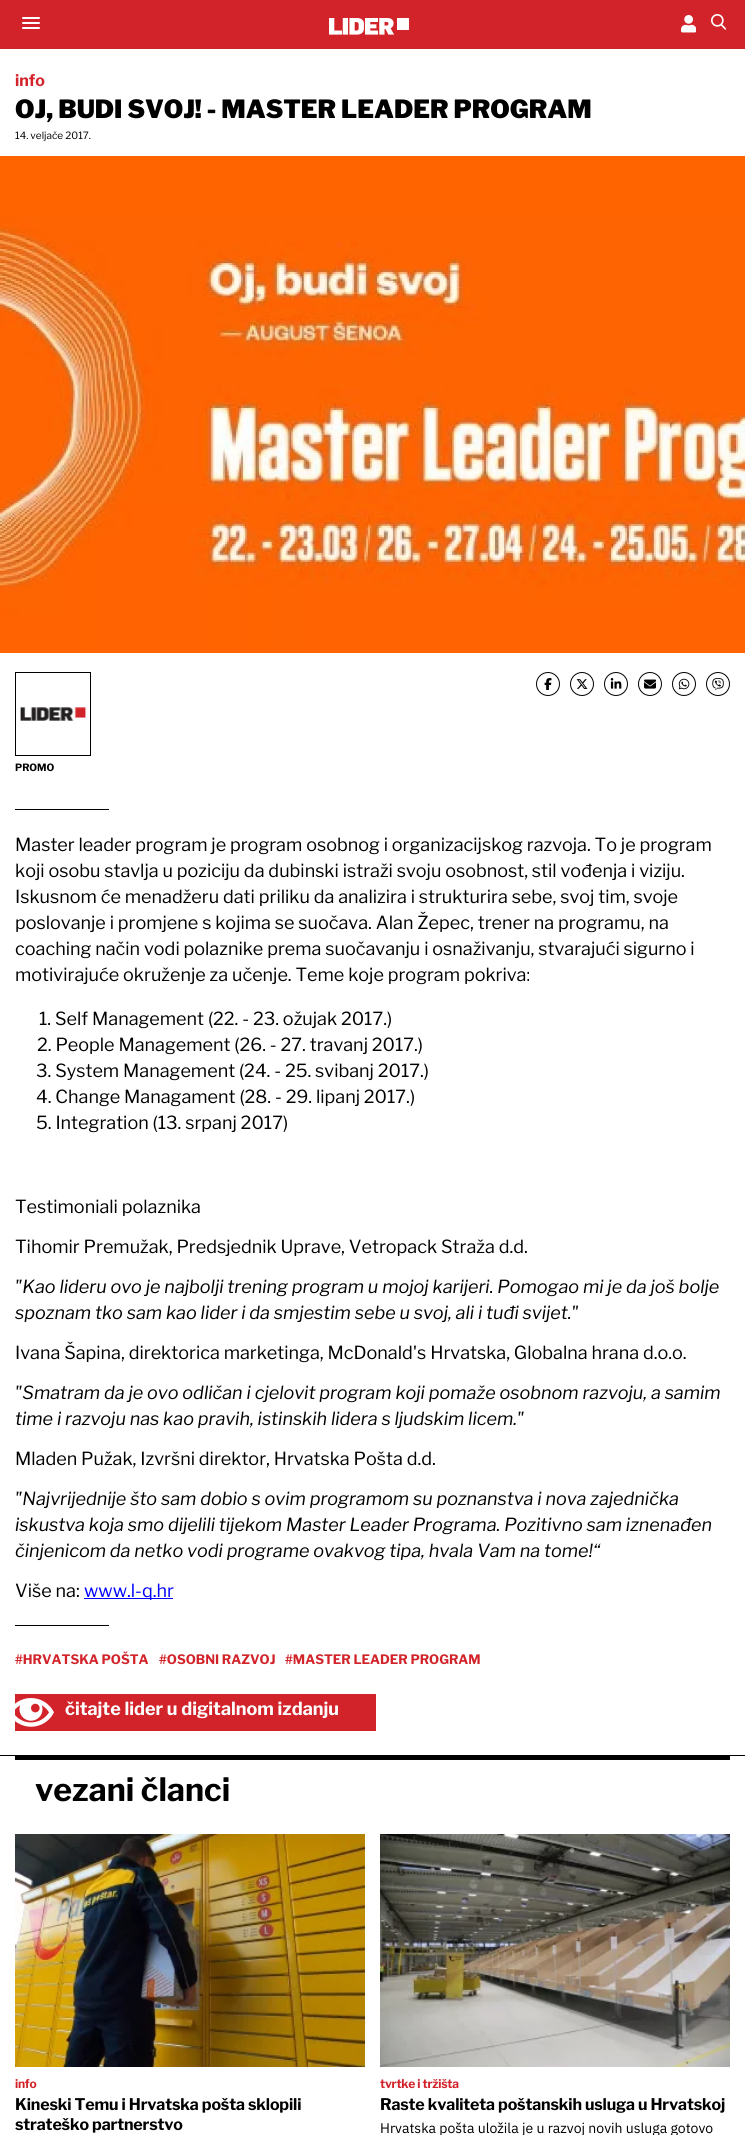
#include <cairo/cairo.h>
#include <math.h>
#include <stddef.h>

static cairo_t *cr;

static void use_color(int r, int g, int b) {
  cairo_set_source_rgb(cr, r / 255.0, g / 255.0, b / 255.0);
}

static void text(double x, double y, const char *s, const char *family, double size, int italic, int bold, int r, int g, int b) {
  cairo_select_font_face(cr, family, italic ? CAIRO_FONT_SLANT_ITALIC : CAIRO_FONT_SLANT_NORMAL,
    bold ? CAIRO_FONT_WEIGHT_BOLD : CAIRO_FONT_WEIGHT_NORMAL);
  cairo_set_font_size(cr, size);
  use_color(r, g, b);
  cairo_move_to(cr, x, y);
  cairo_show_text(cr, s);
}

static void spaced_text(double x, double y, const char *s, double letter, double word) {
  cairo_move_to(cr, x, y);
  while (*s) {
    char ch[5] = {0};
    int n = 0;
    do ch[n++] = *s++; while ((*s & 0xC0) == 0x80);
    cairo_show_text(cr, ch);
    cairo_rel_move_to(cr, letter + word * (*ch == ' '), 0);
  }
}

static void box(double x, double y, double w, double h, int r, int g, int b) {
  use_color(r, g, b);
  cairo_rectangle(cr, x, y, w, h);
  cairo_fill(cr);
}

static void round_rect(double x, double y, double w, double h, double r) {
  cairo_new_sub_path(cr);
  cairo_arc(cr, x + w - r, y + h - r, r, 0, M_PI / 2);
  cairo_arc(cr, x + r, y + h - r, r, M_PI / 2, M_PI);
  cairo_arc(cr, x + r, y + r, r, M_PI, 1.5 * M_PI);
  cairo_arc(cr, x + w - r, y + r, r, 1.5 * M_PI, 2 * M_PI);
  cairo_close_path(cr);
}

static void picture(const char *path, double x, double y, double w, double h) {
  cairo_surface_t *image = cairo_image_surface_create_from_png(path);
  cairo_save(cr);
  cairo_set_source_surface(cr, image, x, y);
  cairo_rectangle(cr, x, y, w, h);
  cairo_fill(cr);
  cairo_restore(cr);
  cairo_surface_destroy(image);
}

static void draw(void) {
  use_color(255, 255, 255);
  cairo_paint(cr);
  box(0, 0, 745, 49, 210, 35, 42);
  use_color(255, 255, 255);
  round_rect(22, 22, 18, 2, 1);
  cairo_fill(cr);
  round_rect(22, 17, 18, 2, 1);
  cairo_fill(cr);
  round_rect(22, 27, 18, 2, 1);
  cairo_fill(cr);
  picture("img_01.png", 329, 18, 80, 17);
  picture("img_02.png", 681, 15, 15, 18);
  picture("img_03.png", 711, 14, 15, 16);
  picture("img_04.png", 0, 156, 745, 497);
  cairo_arc(cr, 548, 684, 11.5, 0, 2 * M_PI);
  use_color(0, 0, 0);
  cairo_set_line_width(cr, 1);
  cairo_stroke(cr);
  picture("img_05.png", 544, 678, 8, 12);
  cairo_arc(cr, 582, 684, 11.5, 0, 2 * M_PI);
  cairo_stroke(cr);
  picture("img_06.png", 576, 679, 12, 10);
  cairo_arc(cr, 616, 684, 11.5, 0, 2 * M_PI);
  cairo_stroke(cr);
  picture("img_07.png", 610, 678, 12, 11);
  cairo_arc(cr, 650, 684, 11.5, 0, 2 * M_PI);
  cairo_stroke(cr);
  picture("img_08.png", 644, 679, 12, 10);
  cairo_arc(cr, 684, 684, 11.5, 0, 2 * M_PI);
  cairo_stroke(cr);
  picture("img_09.png", 678, 678, 12, 12);
  cairo_arc(cr, 718, 684, 11.5, 0, 2 * M_PI);
  cairo_stroke(cr);
  picture("img_10.png", 712, 678, 12, 12);
  cairo_rectangle(cr, 15.5, 672.5, 75, 83);
  cairo_stroke(cr);
  picture("img_11.png", 20, 707, 67, 14);
  box(15, 809, 94, 1, 0, 0, 0);
  box(84, 1598, 89, 1, 0, 0, 255);
  box(15, 1625, 94, 1, 0, 0, 0);
  box(15, 1694, 361, 37, 210, 35, 42);
  picture("img_12.png", 15, 1698, 39, 29);
  box(0, 1755, 745, 1, 0, 0, 0);
  box(15, 1756, 715, 4, 0, 0, 0);
  picture("img_13.png", 15, 1834, 350, 233);
  picture("img_14.png", 380, 1834, 350, 233);
  text(15, 86, "info", "Libre Franklin", 16, 0, 1, 210, 35, 42);
  text(15, 118, "OJ, BUDI SVOJ! - MASTER LEADER PROGRAM", "Libre Franklin Black", 25, 0, 0, 0, 0, 0);
  text(15, 139, "14. veljače 2017.", "Libre Franklin", 10, 0, 0, 0, 0, 0);
  text(15, 771, "PROMO", "Libre Franklin", 10, 0, 1, 0, 0, 0);
  text(15, 851, "Master leader program je program osobnog i organizacijskog razvoja. To je program", "Libre Franklin", 18, 0, 0, 0, 0, 0);
  text(15, 877, "koji osobu stavlja u poziciju da dubinski istraži svoju osobnost, stil vođenja i viziju.", "Libre Franklin", 18, 0, 0, 0, 0, 0);
  text(15, 903, "Iskusnom će menadžeru dati priliku da analizira i strukturira sebe, svoj tim, svoje", "Libre Franklin", 18, 0, 0, 0, 0, 0);
  text(15, 929, "poslovanje i promjene s kojima se suočava. Alan Žepec, trener na programu, na", "Libre Franklin", 18, 0, 0, 0, 0, 0);
  text(15, 955, "coaching način vodi polaznike prema suočavanju i osnaživanju, stvarajući sigurno i", "Libre Franklin", 18, 0, 0, 0, 0, 0);
  text(15, 981, "motivirajuće okruženje za učenje. Teme koje program pokriva:", "Libre Franklin", 18, 0, 0, 0, 0, 0);
  text(39, 1025, "1. Self Management (22. - 23. ožujak 2017.)", "Libre Franklin", 18, 0, 0, 0, 0, 0);
  text(37, 1051, "2. People Management (26. - 27. travanj 2017.)", "Libre Franklin", 18, 0, 0, 0, 0, 0);
  text(36, 1077, "3. System Management (24. - 25. svibanj 2017.)", "Libre Franklin", 18, 0, 0, 0, 0, 0);
  text(36, 1103, "4. Change Managament (28. - 29. lipanj 2017.)", "Libre Franklin", 18, 0, 0, 0, 0, 0);
  text(36, 1129, "5. Integration (13. srpanj 2017)", "Libre Franklin", 18, 0, 0, 0, 0, 0);
  text(15, 1213, "Testimoniali polaznika", "Libre Franklin", 18, 0, 0, 0, 0, 0);
  text(15, 1253, "Tihomir Premužak, Predsjednik Uprave, Vetropack Straža d.d.", "Libre Franklin", 18, 0, 0, 0, 0, 0);
  text(15, 1293, "\"Kao lideru ovo je najbolji trening program u mojoj karijeri. Pomogao mi je da još bolje", "Libre Franklin", 18, 1, 0, 0, 0, 0);
  text(15, 1319, "spoznam tko sam kao lider i da smjestim sebe u svoj, ali i tuđi svijet.\"", "Libre Franklin", 18, 1, 0, 0, 0, 0);
  text(15, 1359, "Ivana Šapina, direktorica marketinga, McDonald's Hrvatska, Globalna hrana d.o.o.", "Libre Franklin", 18, 0, 0, 0, 0, 0);
  text(15, 1399, "\"Smatram da je ovo odličan i cjelovit program koji pomaže osobnom razvoju, a samim", "Libre Franklin", 18, 1, 0, 0, 0, 0);
  text(15, 1425, "time i razvoju nas kao pravih, istinskih lidera s ljudskim licem.\"", "Libre Franklin", 18, 1, 0, 0, 0, 0);
  text(15, 1465, "Mladen Pužak, Izvršni direktor, Hrvatska Pošta d.d.", "Libre Franklin", 18, 0, 0, 0, 0, 0);
  text(15, 1505, "\"Najvrijednije što sam dobio s ovim programom su poznanstva i nova zajednička", "Libre Franklin", 18, 1, 0, 0, 0, 0);
  text(15, 1531, "iskustva koja smo dijelili tijekom Master Leader Programa. Pozitivno sam iznenađen", "Libre Franklin", 18, 1, 0, 0, 0, 0);
  text(15, 1557, "činjenicom da netko vodi programe ovakvog tipa, hvala Vam na tome!“", "Libre Franklin", 18, 1, 0, 0, 0, 0);
  text(15, 1597, "Više na:", "Libre Franklin", 18, 0, 0, 0, 0, 0);
  text(84, 1597, "www.l-q.hr", "Libre Franklin", 18, 0, 0, 0, 0, 255);
  text(15, 1664, "#HRVATSKA POŠTA", "Libre Franklin", 13, 0, 1, 210, 35, 42);
  text(159, 1664, "#OSOBNI RAZVOJ", "Libre Franklin", 13, 0, 1, 210, 35, 42);
  text(285, 1664, "#MASTER LEADER PROGRAM", "Libre Franklin", 13, 0, 1, 210, 35, 42);
  text(65, 1715, "čitajte lider u digitalnom izdanju", "Libre Franklin", 18, 0, 1, 255, 255, 255);
  text(35, 1801, "vezani članci", "Libre Franklin", 32, 0, 1, 0, 0, 0);
  cairo_set_font_size(cr, 12);
  use_color(210, 35, 42);
  spaced_text(15, 2088, "info", -0.25, 0);
  cairo_set_font_size(cr, 16);
  use_color(0, 0, 0);
  spaced_text(15, 2110, "Kineski Temu i Hrvatska pošta sklopili", -0.15, 0);
  spaced_text(15, 2130, "strateško partnerstvo", -0.15, 0);
  cairo_set_font_size(cr, 12);
  use_color(210, 35, 42);
  spaced_text(380, 2088, "tvrtke i tržišta", -0.25, 0);
  cairo_set_font_size(cr, 16);
  use_color(0, 0, 0);
  spaced_text(380, 2110, "Raste kvaliteta poštanskih usluga u Hrvatskoj", -0.15, 0);
  text(380, 2133, "Hrvatska pošta uložila je u razvoj novih usluga gotovo", "IBM Plex Sans", 14, 0, 0, 0, 0, 0);
}

int main(void) {
  cairo_surface_t *surface = cairo_image_surface_create(CAIRO_FORMAT_RGB24, 745, 2135);
  cr = cairo_create(surface);
  cairo_font_options_t *options = cairo_font_options_create();
  cairo_font_options_set_hint_metrics(options, CAIRO_HINT_METRICS_OFF);
  cairo_font_options_set_hint_style(options, CAIRO_HINT_STYLE_NONE);
  cairo_set_font_options(cr, options);
  cairo_set_miter_limit(cr, 4);
  draw();
  cairo_surface_write_to_png(surface, "out.png");
  cairo_font_options_destroy(options);
  cairo_destroy(cr);
  cairo_surface_destroy(surface);
  return 0;
}
